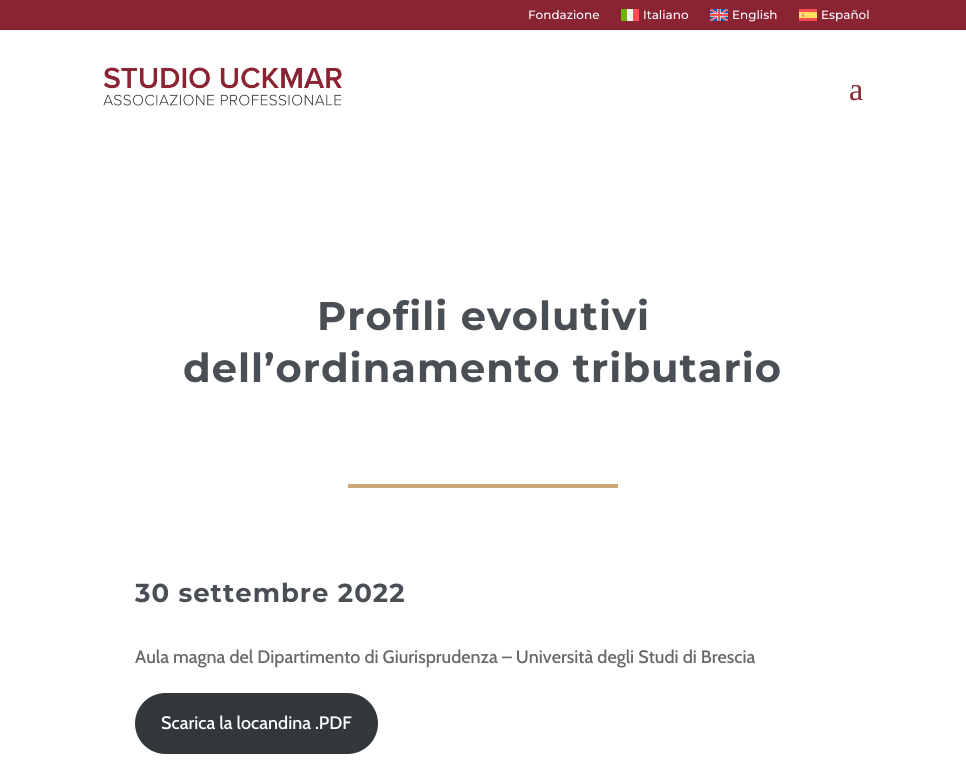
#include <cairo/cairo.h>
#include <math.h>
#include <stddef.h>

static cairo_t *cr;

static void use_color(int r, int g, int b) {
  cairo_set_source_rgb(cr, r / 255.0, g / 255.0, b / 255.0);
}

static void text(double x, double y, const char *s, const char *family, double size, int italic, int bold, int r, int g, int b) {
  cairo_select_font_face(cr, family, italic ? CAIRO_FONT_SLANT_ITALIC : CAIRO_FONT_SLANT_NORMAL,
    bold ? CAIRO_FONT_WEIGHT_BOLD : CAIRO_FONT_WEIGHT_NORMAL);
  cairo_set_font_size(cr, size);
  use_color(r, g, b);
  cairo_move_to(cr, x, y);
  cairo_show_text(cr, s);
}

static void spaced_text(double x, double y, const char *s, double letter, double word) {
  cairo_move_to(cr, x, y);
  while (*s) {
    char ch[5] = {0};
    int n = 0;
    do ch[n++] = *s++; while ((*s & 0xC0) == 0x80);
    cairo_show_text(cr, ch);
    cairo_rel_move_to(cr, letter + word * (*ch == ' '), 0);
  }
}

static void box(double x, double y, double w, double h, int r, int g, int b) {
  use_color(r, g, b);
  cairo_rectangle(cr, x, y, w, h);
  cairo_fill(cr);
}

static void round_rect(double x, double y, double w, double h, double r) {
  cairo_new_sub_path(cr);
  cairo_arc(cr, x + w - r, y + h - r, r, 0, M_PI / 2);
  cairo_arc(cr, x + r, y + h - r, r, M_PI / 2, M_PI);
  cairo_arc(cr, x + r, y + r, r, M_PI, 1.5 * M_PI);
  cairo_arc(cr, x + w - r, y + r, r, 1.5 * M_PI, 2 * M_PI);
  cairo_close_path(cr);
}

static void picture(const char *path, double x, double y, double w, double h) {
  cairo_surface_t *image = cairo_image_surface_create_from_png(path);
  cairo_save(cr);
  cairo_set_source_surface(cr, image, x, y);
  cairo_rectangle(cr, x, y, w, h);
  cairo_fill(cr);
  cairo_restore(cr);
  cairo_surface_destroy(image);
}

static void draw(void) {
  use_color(255, 255, 255);
  cairo_paint(cr);
  box(0, 0, 966, 30, 138, 36, 50);
  box(627, 9, 6, 12, 240, 240, 240);
  box(633, 9, 6, 12, 255, 75, 85);
  box(621, 9, 6, 12, 115, 175, 0);
  picture("img_01.png", 710, 9, 18, 12);
  picture("img_02.png", 799, 9, 18, 12);
  picture("img_03.png", 103, 67, 239, 39);
  box(348, 484, 270, 4, 204, 168, 118);
  use_color(50, 55, 60);
  round_rect(135, 693, 243, 61, 30.5);
  cairo_fill(cr);
  text(528, 19, "Fondazione", "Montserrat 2 Thin", 12, 0, 0, 255, 255, 255);
  text(643, 19, "Italiano", "Montserrat 2 Thin", 12, 0, 0, 255, 255, 255);
  text(732, 19, "English", "Montserrat 2 Thin", 12, 0, 0, 255, 255, 255);
  text(821, 19, "Español", "Montserrat 2 Thin", 12, 0, 0, 255, 255, 255);
  text(849, 100, "a", "Liberation Serif", 32, 0, 0, 138, 36, 50);
  cairo_select_font_face(cr, "Montserrat Thin", CAIRO_FONT_SLANT_NORMAL, CAIRO_FONT_WEIGHT_NORMAL);
  cairo_set_font_size(cr, 40);
  use_color(74, 79, 85);
  spaced_text(317, 330, "Profili evolutivi", 1, 0);
  spaced_text(183, 382, "dell’ordinamento tributario", 1, 0);
  cairo_set_font_size(cr, 26);
  spaced_text(135, 602, "30 settembre 2022", 1, 0);
  text(135, 663, "Aula magna del Dipartimento di Giurisprudenza – Università degli Studi di Brescia", "Cabin Medium", 18, 0, 0, 104, 104, 104);
  text(161, 729, "Scarica la locandina .PDF", "Cabin Medium", 18, 0, 0, 255, 255, 255);
}

int main(void) {
  cairo_surface_t *surface = cairo_image_surface_create(CAIRO_FORMAT_RGB24, 966, 762);
  cr = cairo_create(surface);
  cairo_font_options_t *options = cairo_font_options_create();
  cairo_font_options_set_hint_metrics(options, CAIRO_HINT_METRICS_OFF);
  cairo_font_options_set_hint_style(options, CAIRO_HINT_STYLE_NONE);
  cairo_set_font_options(cr, options);
  cairo_set_miter_limit(cr, 4);
  draw();
  cairo_surface_write_to_png(surface, "out.png");
  cairo_font_options_destroy(options);
  cairo_destroy(cr);
  cairo_surface_destroy(surface);
  return 0;
}
